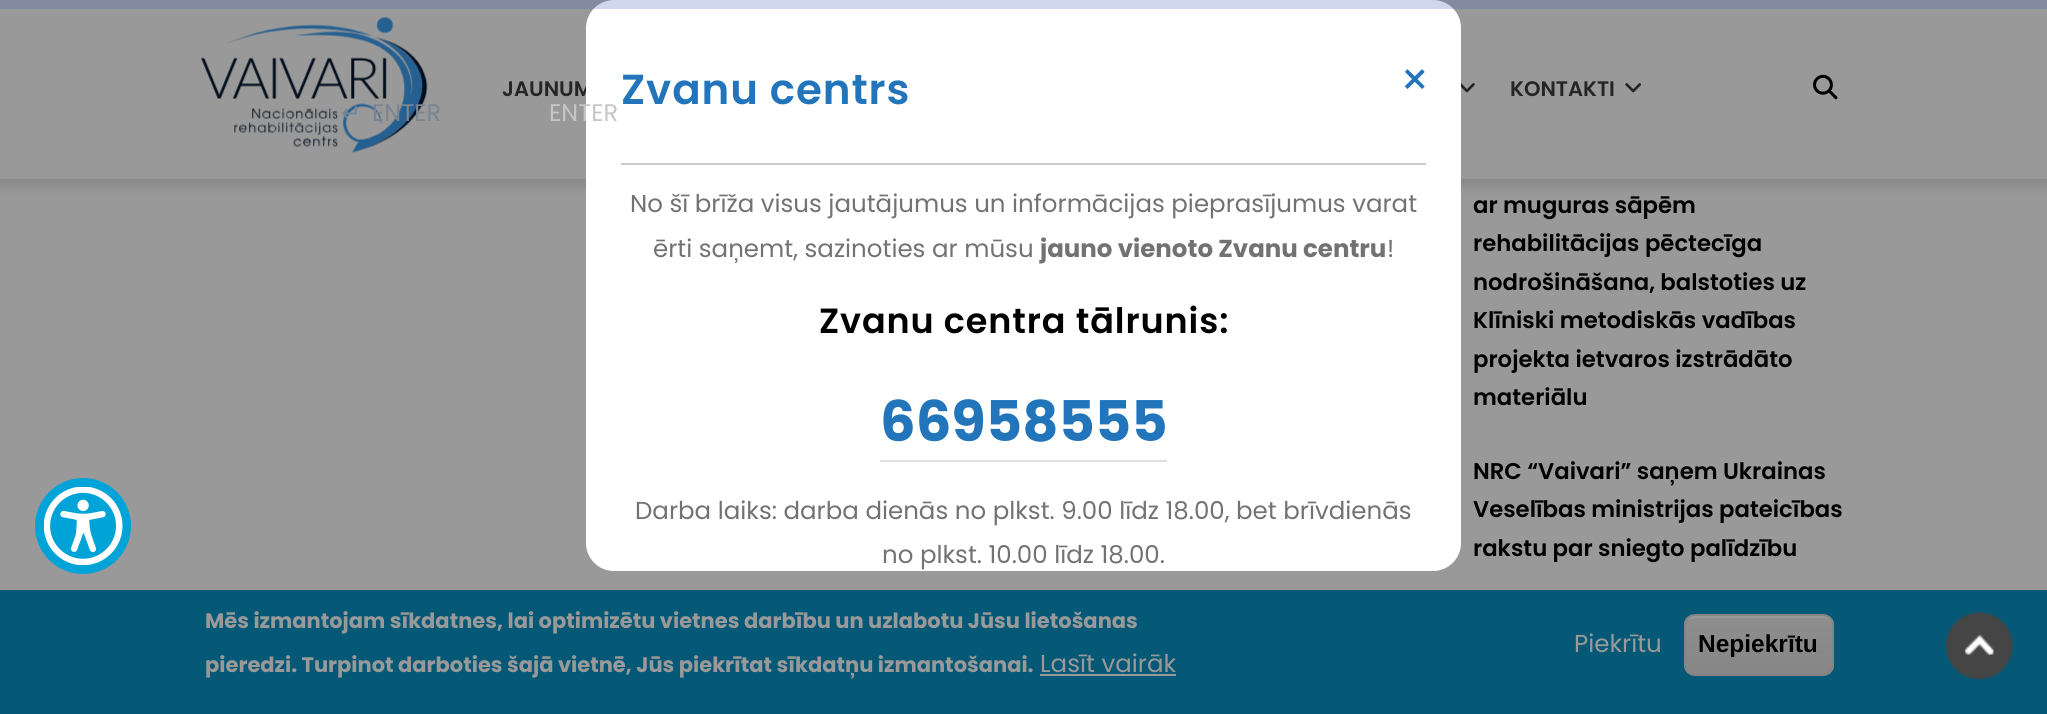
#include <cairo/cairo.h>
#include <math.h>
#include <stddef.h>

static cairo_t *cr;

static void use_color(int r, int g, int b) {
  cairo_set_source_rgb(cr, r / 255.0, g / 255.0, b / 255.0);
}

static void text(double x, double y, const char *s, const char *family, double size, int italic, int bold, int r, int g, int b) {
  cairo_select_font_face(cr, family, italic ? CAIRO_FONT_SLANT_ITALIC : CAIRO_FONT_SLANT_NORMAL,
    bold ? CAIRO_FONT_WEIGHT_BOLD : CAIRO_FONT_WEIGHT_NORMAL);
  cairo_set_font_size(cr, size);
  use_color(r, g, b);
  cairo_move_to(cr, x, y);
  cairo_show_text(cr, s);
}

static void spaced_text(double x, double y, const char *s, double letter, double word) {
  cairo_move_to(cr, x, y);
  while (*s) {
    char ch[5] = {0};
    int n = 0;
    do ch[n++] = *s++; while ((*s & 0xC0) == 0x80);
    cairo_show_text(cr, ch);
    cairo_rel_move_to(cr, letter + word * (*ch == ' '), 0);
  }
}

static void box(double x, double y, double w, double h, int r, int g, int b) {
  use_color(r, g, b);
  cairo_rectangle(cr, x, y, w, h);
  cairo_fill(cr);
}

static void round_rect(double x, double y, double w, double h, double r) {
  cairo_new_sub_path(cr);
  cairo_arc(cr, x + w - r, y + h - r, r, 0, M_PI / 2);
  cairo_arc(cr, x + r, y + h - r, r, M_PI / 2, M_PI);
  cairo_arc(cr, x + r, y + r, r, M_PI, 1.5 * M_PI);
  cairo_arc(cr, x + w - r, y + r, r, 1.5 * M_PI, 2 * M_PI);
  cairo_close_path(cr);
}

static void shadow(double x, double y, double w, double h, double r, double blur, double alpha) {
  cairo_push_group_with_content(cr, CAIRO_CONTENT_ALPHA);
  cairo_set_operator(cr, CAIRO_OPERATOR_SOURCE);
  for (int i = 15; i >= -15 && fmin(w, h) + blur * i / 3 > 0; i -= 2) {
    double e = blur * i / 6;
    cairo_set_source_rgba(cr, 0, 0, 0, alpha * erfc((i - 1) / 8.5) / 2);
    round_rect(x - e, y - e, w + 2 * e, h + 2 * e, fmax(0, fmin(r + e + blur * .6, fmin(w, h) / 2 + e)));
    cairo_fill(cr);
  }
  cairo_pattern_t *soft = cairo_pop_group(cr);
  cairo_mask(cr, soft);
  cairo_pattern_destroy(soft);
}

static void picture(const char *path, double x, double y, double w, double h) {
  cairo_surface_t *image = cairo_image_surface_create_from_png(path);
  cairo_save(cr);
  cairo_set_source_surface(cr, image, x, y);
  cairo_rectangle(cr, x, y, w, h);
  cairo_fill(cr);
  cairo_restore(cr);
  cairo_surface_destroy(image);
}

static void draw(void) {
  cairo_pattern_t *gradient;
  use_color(153, 153, 153);
  cairo_paint(cr);
  use_color(0, 163, 215);
  cairo_arc(cr, 83, 526, 48, 0, 2 * M_PI);
  cairo_fill(cr);
  picture("img_01.png", 44, 487, 79, 78);
  use_color(0, 0, 0);
  shadow(-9, -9, 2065, 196, 0, 4.5, 0.1);
  box(0, 0, 2047, 179, 153, 153, 153);
  picture("img_02.png", 201, 17, 227, 136);
  picture("img_03.png", 1461, 83, 14, 10);
  picture("img_04.png", 1625, 83, 16, 10);
  picture("img_05.png", 1813, 74, 25, 26);
  box(0, 590, 2047, 124, 5, 89, 118);
  box(1040, 674, 136, 2, 153, 153, 153);
  cairo_save(cr);
  round_rect(1684, 614, 150, 62, 11);
  cairo_clip(cr);
  gradient = cairo_pattern_create_linear(1759, 616, 1759, 674);
  cairo_pattern_add_color_stop_rgba(gradient, 0.05, 0.557, 0.557, 0.557, 1);
  cairo_pattern_add_color_stop_rgba(gradient, 1, 0.525, 0.525, 0.525, 1);
  cairo_set_source(cr, gradient);
  cairo_pattern_destroy(gradient);
  cairo_rectangle(cr, 1684, 616, 150, 58);
  cairo_fill(cr);
  cairo_restore(cr);
  cairo_new_path(cr);
  cairo_move_to(cr, 1694, 618);
  cairo_line_to(cr, 1824, 618);
  cairo_curve_to(cr, 1828, 618, 1832, 622, 1832, 626);
  cairo_curve_to(cr, 1832, 611, 1810, 616, 1802, 616);
  cairo_line_to(cr, 1716, 616);
  cairo_curve_to(cr, 1707, 616, 1685, 611, 1685, 626);
  cairo_curve_to(cr, 1685, 622, 1689, 618, 1694, 618);
  cairo_close_path(cr);
  cairo_fill(cr);
  round_rect(1685, 615, 148, 60, 10);
  use_color(132, 132, 132);
  cairo_stroke(cr);
  picture("img_06.png", 1946, 612, 67, 67);
  text(341, 121, "↵", "DejaVu Sans", 24, 0, 0, 117, 135, 150);
  text(372, 121, "ENTER", "Poppins", 24, 0, 0, 121, 133, 144);
  text(1473, 213, "ar muguras sāpēm", "Poppins SemiBold", 22.75, 0, 0, 0, 0, 0);
  text(1473, 251, "rehabilitācijas pēctecīga", "Poppins SemiBold", 22.75, 0, 0, 0, 0, 0);
  text(1473, 290, "nodrošināšana, balstoties uz", "Poppins SemiBold", 22.75, 0, 0, 0, 0, 0);
  text(1473, 328, "Klīniski metodiskās vadības", "Poppins SemiBold", 22.75, 0, 0, 0, 0, 0);
  text(1473, 367, "projekta ietvaros izstrādāto", "Poppins SemiBold", 22.75, 0, 0, 0, 0, 0);
  text(1473, 405, "materiālu", "Poppins SemiBold", 22.75, 0, 0, 0, 0, 0);
  text(1473, 479, "NRC “Vaivari” saņem Ukrainas", "Poppins SemiBold", 22.75, 0, 0, 0, 0, 0);
  text(1473, 517, "Veselības ministrijas pateicības", "Poppins SemiBold", 22.75, 0, 0, 0, 0, 0);
  text(1473, 556, "rakstu par sniegto palīdzību", "Poppins SemiBold", 22.75, 0, 0, 0, 0, 0);
  text(502, 96, "JAUNUM", "Poppins SemiBold", 21, 0, 0, 37, 37, 37);
  use_color(255, 255, 255);
  round_rect(586, 0, 875, 571, 28);
  cairo_fill(cr);
  text(549, 121, "ENTER", "Poppins", 24, 0, 0, 198, 198, 198);
  cairo_set_source_rgba(cr, 0.259, 0.361, 0.733, 0.25);
  cairo_rectangle(cr, 0, 0, 2047, 9);
  cairo_fill(cr);
  text(1400, 96, "×", "Poppins", 46, 0, 0, 35, 117, 187);
  text(882, 563, "no plkst. 10.00 līdz 18.00.", "Poppins", 24.5, 0, 0, 114, 114, 114);
  text(635, 519, "Darba laiks: darba dienās no plkst. 9.00 līdz 18.00, bet brīvdienās", "Poppins", 24.5, 0, 0, 114, 114, 114);
  text(880, 441, "66958555", "Poppins", 56, 0, 1, 35, 117, 187);
  box(880, 460, 287, 2, 223, 223, 223);
  cairo_select_font_face(cr, "Poppins SemiBold", CAIRO_FONT_SLANT_NORMAL, CAIRO_FONT_WEIGHT_NORMAL);
  cairo_set_font_size(cr, 35);
  use_color(0, 0, 0);
  spaced_text(819, 333, "Zvanu centra tālrunis:", 0.9, 0);
  text(1387, 257, "!", "Poppins", 24.5, 0, 0, 114, 114, 114);
  text(1040, 257, "jauno vienoto Zvanu centru", "Poppins", 24.5, 0, 1, 114, 114, 114);
  text(653, 257, "ērti saņemt, sazinoties ar mūsu", "Poppins", 24.5, 0, 0, 114, 114, 114);
  text(630, 212, "No šī brīža visus jautājumus un informācijas pieprasījumus varat", "Poppins", 24.5, 0, 0, 114, 114, 114);
  cairo_select_font_face(cr, "Poppins SemiBold", CAIRO_FONT_SLANT_NORMAL, CAIRO_FONT_WEIGHT_NORMAL);
  cairo_set_font_size(cr, 42);
  use_color(35, 117, 187);
  spaced_text(621, 104, "Zvanu centrs", 0.9, 0);
  box(621, 163, 805, 2, 204, 201, 201);
  text(1510, 96, "KONTAKTI", "Poppins SemiBold", 21, 0, 0, 37, 37, 37);
  text(205, 628, "Mēs izmantojam sīkdatnes, lai optimizētu vietnes darbību un uzlabotu Jūsu lietošanas", "Poppins", 21, 0, 1, 153, 153, 153);
  text(205, 672, "pieredzi. Turpinot darboties šajā vietnē, Jūs piekrītat sīkdatņu izmantošanai.", "Poppins", 21, 0, 1, 153, 153, 153);
  text(1040, 672, "Lasīt vairāk", "Poppins", 24.5, 0, 0, 153, 153, 153);
  text(1574, 652, "Piekrītu", "Poppins", 24.5, 0, 0, 153, 153, 153);
  text(1698, 652, "Nepiekrītu", "Liberation Sans", 24.5, 0, 1, 0, 0, 0);
}

int main(void) {
  cairo_surface_t *surface = cairo_image_surface_create(CAIRO_FORMAT_RGB24, 2047, 714);
  cr = cairo_create(surface);
  cairo_font_options_t *options = cairo_font_options_create();
  cairo_font_options_set_hint_metrics(options, CAIRO_HINT_METRICS_OFF);
  cairo_font_options_set_hint_style(options, CAIRO_HINT_STYLE_NONE);
  cairo_set_font_options(cr, options);
  cairo_set_miter_limit(cr, 4);
  draw();
  cairo_surface_write_to_png(surface, "out.png");
  cairo_font_options_destroy(options);
  cairo_destroy(cr);
  cairo_surface_destroy(surface);
  return 0;
}
